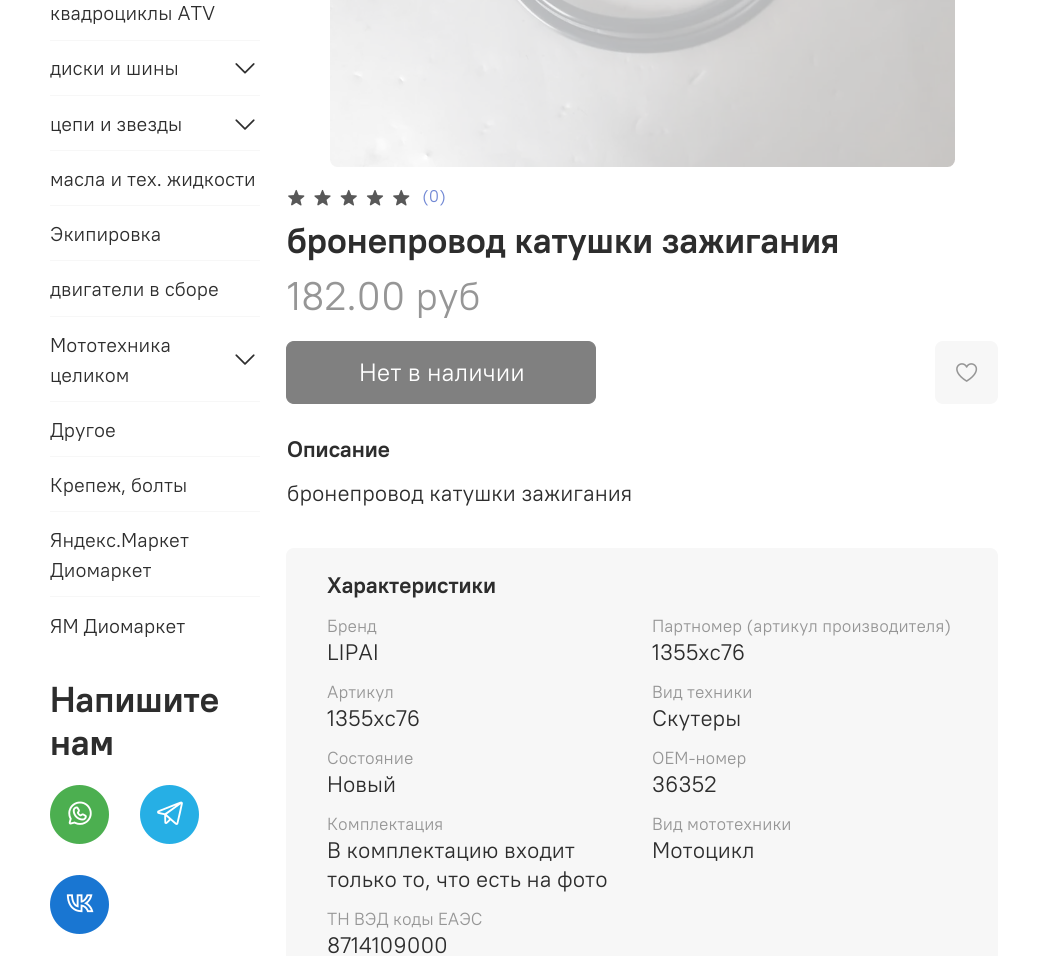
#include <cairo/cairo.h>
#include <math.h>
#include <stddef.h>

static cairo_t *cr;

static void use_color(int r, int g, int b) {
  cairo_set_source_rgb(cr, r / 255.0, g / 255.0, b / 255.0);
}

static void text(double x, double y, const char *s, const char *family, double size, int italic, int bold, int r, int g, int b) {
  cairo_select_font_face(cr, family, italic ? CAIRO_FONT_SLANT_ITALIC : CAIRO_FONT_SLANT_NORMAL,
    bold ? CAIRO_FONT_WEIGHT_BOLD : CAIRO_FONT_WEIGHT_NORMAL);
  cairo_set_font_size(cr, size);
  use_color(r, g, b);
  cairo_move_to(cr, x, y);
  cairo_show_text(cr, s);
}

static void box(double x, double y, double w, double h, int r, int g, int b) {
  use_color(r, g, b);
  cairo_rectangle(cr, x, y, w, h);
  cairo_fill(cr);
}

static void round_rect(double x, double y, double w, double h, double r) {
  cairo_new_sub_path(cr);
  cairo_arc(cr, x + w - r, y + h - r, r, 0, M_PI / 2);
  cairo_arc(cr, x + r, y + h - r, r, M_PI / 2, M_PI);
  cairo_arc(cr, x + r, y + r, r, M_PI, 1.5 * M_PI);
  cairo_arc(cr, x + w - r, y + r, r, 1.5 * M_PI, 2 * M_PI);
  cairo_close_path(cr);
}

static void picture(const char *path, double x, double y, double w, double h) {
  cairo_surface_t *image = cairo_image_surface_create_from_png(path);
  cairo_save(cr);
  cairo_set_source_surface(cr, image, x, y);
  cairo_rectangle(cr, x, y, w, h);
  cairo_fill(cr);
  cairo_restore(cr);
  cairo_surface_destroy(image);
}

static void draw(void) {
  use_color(255, 255, 255);
  cairo_paint(cr);
  box(50, 40, 210, 1, 247, 247, 247);
  box(50, 95, 210, 1, 247, 247, 247);
  picture("img_01.png", 235, 63, 20, 11);
  box(50, 150, 210, 1, 247, 247, 247);
  picture("img_02.png", 235, 119, 20, 11);
  box(50, 205, 210, 1, 247, 247, 247);
  box(50, 260, 210, 1, 247, 247, 247);
  box(50, 316, 210, 1, 247, 247, 247);
  box(50, 401, 210, 1, 247, 247, 247);
  picture("img_02.png", 235, 354, 20, 11);
  box(50, 456, 210, 1, 247, 247, 247);
  box(50, 511, 210, 1, 247, 247, 247);
  box(50, 596, 210, 1, 247, 247, 247);
  use_color(76, 175, 80);
  cairo_arc(cr, 79.5, 814.5, 29.5, 0, 2 * M_PI);
  cairo_fill(cr);
  picture("img_03.png", 68, 801, 24, 24);
  use_color(38, 175, 229);
  cairo_arc(cr, 169.5, 814.5, 29.5, 0, 2 * M_PI);
  cairo_fill(cr);
  picture("img_04.png", 157, 801, 26, 24);
  use_color(25, 118, 210);
  cairo_arc(cr, 79.5, 904.5, 29.5, 0, 2 * M_PI);
  cairo_fill(cr);
  picture("img_05.png", 66, 894, 28, 19);
  picture("img_06.png", 330, 0, 625, 167);
  picture("img_07.png", 288, 189, 17, 17);
  picture("img_08.png", 314, 189, 17, 17);
  picture("img_09.png", 340, 189, 17, 17);
  picture("img_10.png", 366, 190, 18, 16);
  picture("img_07.png", 393, 189, 17, 17);
  use_color(128, 128, 128);
  round_rect(286.5, 341.5, 309, 62, 7.5);
  cairo_fill_preserve(cr);
  cairo_set_line_width(cr, 1);
  cairo_stroke(cr);
  use_color(247, 247, 247);
  round_rect(935, 341, 63, 63, 8);
  cairo_fill(cr);
  picture("img_11.png", 956, 363, 22, 19);
  round_rect(286, 548, 712, 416, 8);
  cairo_fill(cr);
  text(50, 20, "квадроциклы ATV", "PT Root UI", 20, 0, 0, 45, 45, 45);
  text(50, 75, "диски и шины", "PT Root UI", 20, 0, 0, 45, 45, 45);
  text(50, 131, "цепи и звезды", "PT Root UI", 20, 0, 0, 45, 45, 45);
  text(50, 186, "масла и тех. жидкости", "PT Root UI", 20, 0, 0, 45, 45, 45);
  text(50, 241, "Экипировка", "PT Root UI", 20, 0, 0, 45, 45, 45);
  text(50, 296, "двигатели в сборе", "PT Root UI", 20, 0, 0, 45, 45, 45);
  text(50, 352, "Мототехника", "PT Root UI", 20, 0, 0, 45, 45, 45);
  text(50, 382, "целиком", "PT Root UI", 20, 0, 0, 45, 45, 45);
  text(50, 437, "Другое", "PT Root UI", 20, 0, 0, 45, 45, 45);
  text(50, 492, "Крепеж, болты", "PT Root UI", 20, 0, 0, 45, 45, 45);
  text(50, 547, "Яндекс.Маркет", "PT Root UI", 20, 0, 0, 45, 45, 45);
  text(50, 577, "Диомаркет", "PT Root UI", 20, 0, 0, 45, 45, 45);
  text(50, 633, "ЯМ Диомаркет", "PT Root UI", 20, 0, 0, 45, 45, 45);
  text(50, 712, "Напишите", "PT Root UI", 36, 0, 1, 45, 45, 45);
  text(50, 755, "нам", "PT Root UI", 36, 0, 1, 45, 45, 45);
  text(422, 202, "(0)", "PT Root UI", 17, 0, 0, 113, 136, 212);
  text(287, 253, "бронепровод катушки зажигания", "PT Root UI", 36, 0, 1, 45, 45, 45);
  text(287, 310, "182.00 руб", "PT Root UI", 40, 0, 0, 150, 150, 150);
  text(359, 381, "Нет в наличии", "PT Root UI", 25, 0, 0, 255, 255, 255);
  text(287, 457, "Описание", "PT Root UI", 22.5, 0, 1, 45, 45, 45);
  text(287, 501, "бронепровод катушки зажигания", "PT Root UI", 22.5, 0, 0, 45, 45, 45);
  text(327, 593, "Характеристики", "PT Root UI", 22.5, 0, 1, 45, 45, 45);
  text(327, 632, "Бренд", "PT Root UI", 17.5, 0, 0, 150, 150, 150);
  text(327, 660, "LIPAI", "PT Root UI", 22.5, 0, 0, 45, 45, 45);
  text(652, 632, "Партномер (артикул производителя)", "PT Root UI", 17.5, 0, 0, 150, 150, 150);
  text(652, 660, "1355xc76", "PT Root UI", 22.5, 0, 0, 45, 45, 45);
  text(327, 698, "Артикул", "PT Root UI", 17.5, 0, 0, 150, 150, 150);
  text(327, 726, "1355xc76", "PT Root UI", 22.5, 0, 0, 45, 45, 45);
  text(652, 698, "Вид техники", "PT Root UI", 17.5, 0, 0, 150, 150, 150);
  text(652, 726, "Скутеры", "PT Root UI", 22.5, 0, 0, 45, 45, 45);
  text(327, 764, "Состояние", "PT Root UI", 17.5, 0, 0, 150, 150, 150);
  text(327, 792, "Новый", "PT Root UI", 22.5, 0, 0, 45, 45, 45);
  text(652, 764, "OEM-номер", "PT Root UI", 17.5, 0, 0, 150, 150, 150);
  text(652, 792, "36352", "PT Root UI", 22.5, 0, 0, 45, 45, 45);
  text(327, 830, "Комплектация", "PT Root UI", 17.5, 0, 0, 150, 150, 150);
  text(327, 858, "В комплектацию входит", "PT Root UI", 22.5, 0, 0, 45, 45, 45);
  text(327, 887, "только то, что есть на фото", "PT Root UI", 22.5, 0, 0, 45, 45, 45);
  text(652, 830, "Вид мототехники", "PT Root UI", 17.5, 0, 0, 150, 150, 150);
  text(652, 858, "Мотоцикл", "PT Root UI", 22.5, 0, 0, 45, 45, 45);
  text(327, 925, "ТН ВЭД коды ЕАЭС", "PT Root UI", 17.5, 0, 0, 150, 150, 150);
  text(327, 953, "8714109000", "PT Root UI", 22.5, 0, 0, 45, 45, 45);
}

int main(void) {
  cairo_surface_t *surface = cairo_image_surface_create(CAIRO_FORMAT_RGB24, 1047, 956);
  cr = cairo_create(surface);
  cairo_font_options_t *options = cairo_font_options_create();
  cairo_font_options_set_hint_metrics(options, CAIRO_HINT_METRICS_OFF);
  cairo_font_options_set_hint_style(options, CAIRO_HINT_STYLE_NONE);
  cairo_set_font_options(cr, options);
  cairo_set_miter_limit(cr, 4);
  draw();
  cairo_surface_write_to_png(surface, "out.png");
  cairo_font_options_destroy(options);
  cairo_destroy(cr);
  cairo_surface_destroy(surface);
  return 0;
}
